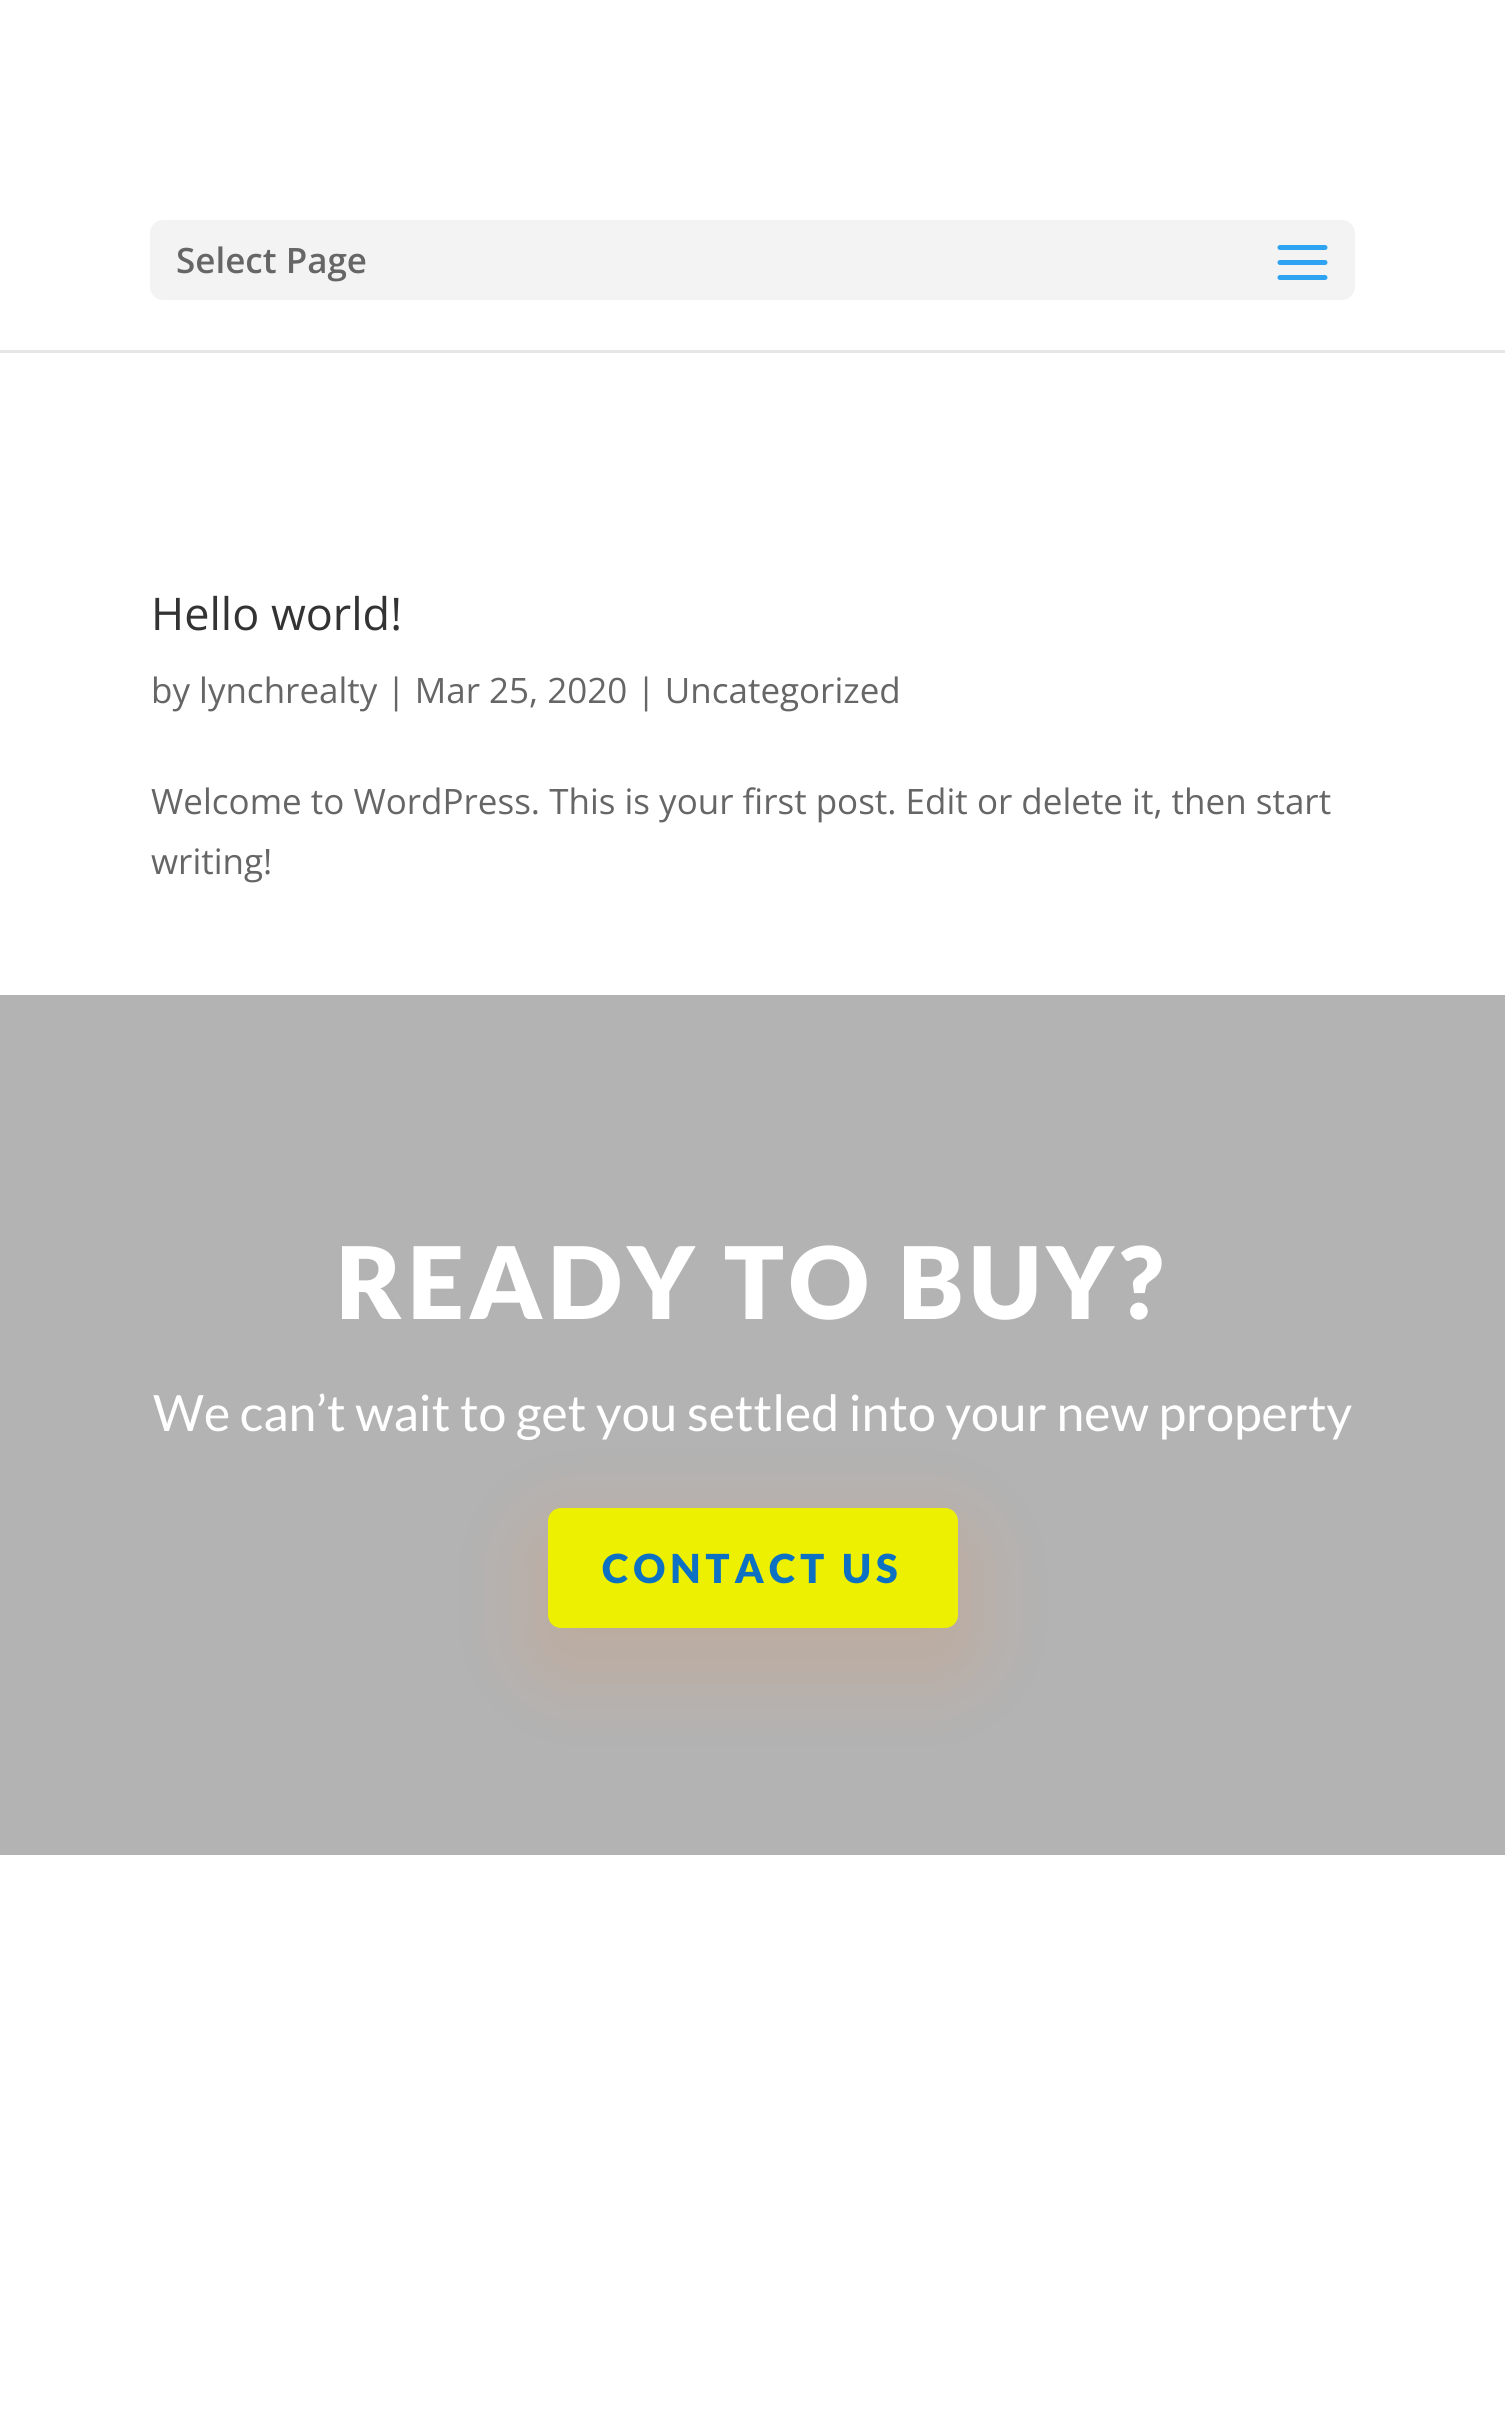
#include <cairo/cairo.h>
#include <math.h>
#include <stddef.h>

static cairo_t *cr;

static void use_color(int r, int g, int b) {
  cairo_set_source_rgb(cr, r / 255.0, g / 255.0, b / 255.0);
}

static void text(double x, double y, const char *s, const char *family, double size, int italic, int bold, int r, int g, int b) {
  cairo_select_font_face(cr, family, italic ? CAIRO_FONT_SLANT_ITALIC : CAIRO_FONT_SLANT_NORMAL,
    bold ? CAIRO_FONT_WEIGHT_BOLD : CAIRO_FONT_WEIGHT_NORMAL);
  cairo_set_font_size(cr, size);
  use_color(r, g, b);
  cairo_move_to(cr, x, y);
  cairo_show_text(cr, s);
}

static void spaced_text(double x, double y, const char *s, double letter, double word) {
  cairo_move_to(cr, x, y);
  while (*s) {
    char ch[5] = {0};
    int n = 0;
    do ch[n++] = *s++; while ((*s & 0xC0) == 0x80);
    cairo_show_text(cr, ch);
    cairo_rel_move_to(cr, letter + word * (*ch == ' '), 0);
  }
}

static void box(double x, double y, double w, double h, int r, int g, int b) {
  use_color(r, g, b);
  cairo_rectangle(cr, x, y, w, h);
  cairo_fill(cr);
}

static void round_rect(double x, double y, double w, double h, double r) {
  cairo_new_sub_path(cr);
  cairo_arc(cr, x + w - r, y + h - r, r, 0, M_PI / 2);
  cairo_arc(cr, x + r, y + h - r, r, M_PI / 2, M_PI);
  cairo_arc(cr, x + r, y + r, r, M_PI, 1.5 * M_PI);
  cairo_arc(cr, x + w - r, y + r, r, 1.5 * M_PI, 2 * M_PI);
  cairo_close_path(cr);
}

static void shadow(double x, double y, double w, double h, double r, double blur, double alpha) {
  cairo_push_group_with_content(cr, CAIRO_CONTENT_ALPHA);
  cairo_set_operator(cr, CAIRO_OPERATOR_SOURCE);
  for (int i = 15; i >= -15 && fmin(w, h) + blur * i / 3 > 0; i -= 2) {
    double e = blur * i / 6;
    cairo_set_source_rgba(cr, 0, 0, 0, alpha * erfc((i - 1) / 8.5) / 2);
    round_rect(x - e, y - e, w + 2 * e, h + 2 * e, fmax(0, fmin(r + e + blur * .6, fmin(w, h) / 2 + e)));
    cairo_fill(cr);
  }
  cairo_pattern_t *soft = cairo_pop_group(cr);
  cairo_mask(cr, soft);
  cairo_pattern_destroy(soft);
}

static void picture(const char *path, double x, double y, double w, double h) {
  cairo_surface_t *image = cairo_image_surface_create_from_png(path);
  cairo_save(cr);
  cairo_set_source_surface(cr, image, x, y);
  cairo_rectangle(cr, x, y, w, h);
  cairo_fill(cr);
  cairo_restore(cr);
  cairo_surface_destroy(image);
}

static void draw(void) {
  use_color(255, 255, 255);
  cairo_paint(cr);
  box(0, 350, 1505, 3, 230, 230, 230);
  use_color(243, 243, 243);
  round_rect(150, 220, 1205, 80, 13);
  cairo_fill(cr);
  picture("img_01.png", 1277, 245, 51, 35);
  box(0, 995, 1505, 860, 179, 179, 179);
  use_color(250, 127, 40);
  shadow(528, 1518, 450, 160, 33, 37.5, 0.15);
  use_color(237, 240, 0);
  round_rect(555.5, 1515.5, 395, 105, 5.5);
  cairo_fill_preserve(cr);
  cairo_set_line_width(cr, 15);
  cairo_stroke(cr);
  text(176, 273, "Select Page", "Open Sans SemiBold", 35, 0, 0, 102, 102, 102);
  text(151, 630, "Hello world!", "Open Sans", 45, 0, 0, 51, 51, 51);
  text(151, 703, "by lynchrealty | Mar 25, 2020 | Uncategorized", "Open Sans", 35, 0, 0, 102, 102, 102);
  text(151, 814, "Welcome to WordPress. This is your first post. Edit or delete it, then start", "Open Sans", 35, 0, 0, 102, 102, 102);
  text(151, 874, "writing!", "Open Sans", 35, 0, 0, 102, 102, 102);
  cairo_select_font_face(cr, "Lato Black", CAIRO_FONT_SLANT_NORMAL, CAIRO_FONT_WEIGHT_NORMAL);
  cairo_set_font_size(cr, 100);
  use_color(255, 255, 255);
  spaced_text(336, 1319, "READY TO BUY?", 5, 0);
  text(153, 1431, "We can’t wait to get you settled into your new property", "Lato", 50, 0, 0, 255, 255, 255);
  cairo_select_font_face(cr, "Lato Black", CAIRO_FONT_SLANT_NORMAL, CAIRO_FONT_WEIGHT_NORMAL);
  cairo_set_font_size(cr, 40);
  use_color(12, 113, 195);
  spaced_text(602, 1583, "CONTACT US", 5, 0);
}

int main(void) {
  cairo_surface_t *surface = cairo_image_surface_create(CAIRO_FORMAT_RGB24, 1505, 2421);
  cr = cairo_create(surface);
  cairo_font_options_t *options = cairo_font_options_create();
  cairo_font_options_set_hint_metrics(options, CAIRO_HINT_METRICS_OFF);
  cairo_font_options_set_hint_style(options, CAIRO_HINT_STYLE_NONE);
  cairo_set_font_options(cr, options);
  cairo_set_miter_limit(cr, 4);
  draw();
  cairo_surface_write_to_png(surface, "out.png");
  cairo_font_options_destroy(options);
  cairo_destroy(cr);
  cairo_surface_destroy(surface);
  return 0;
}
